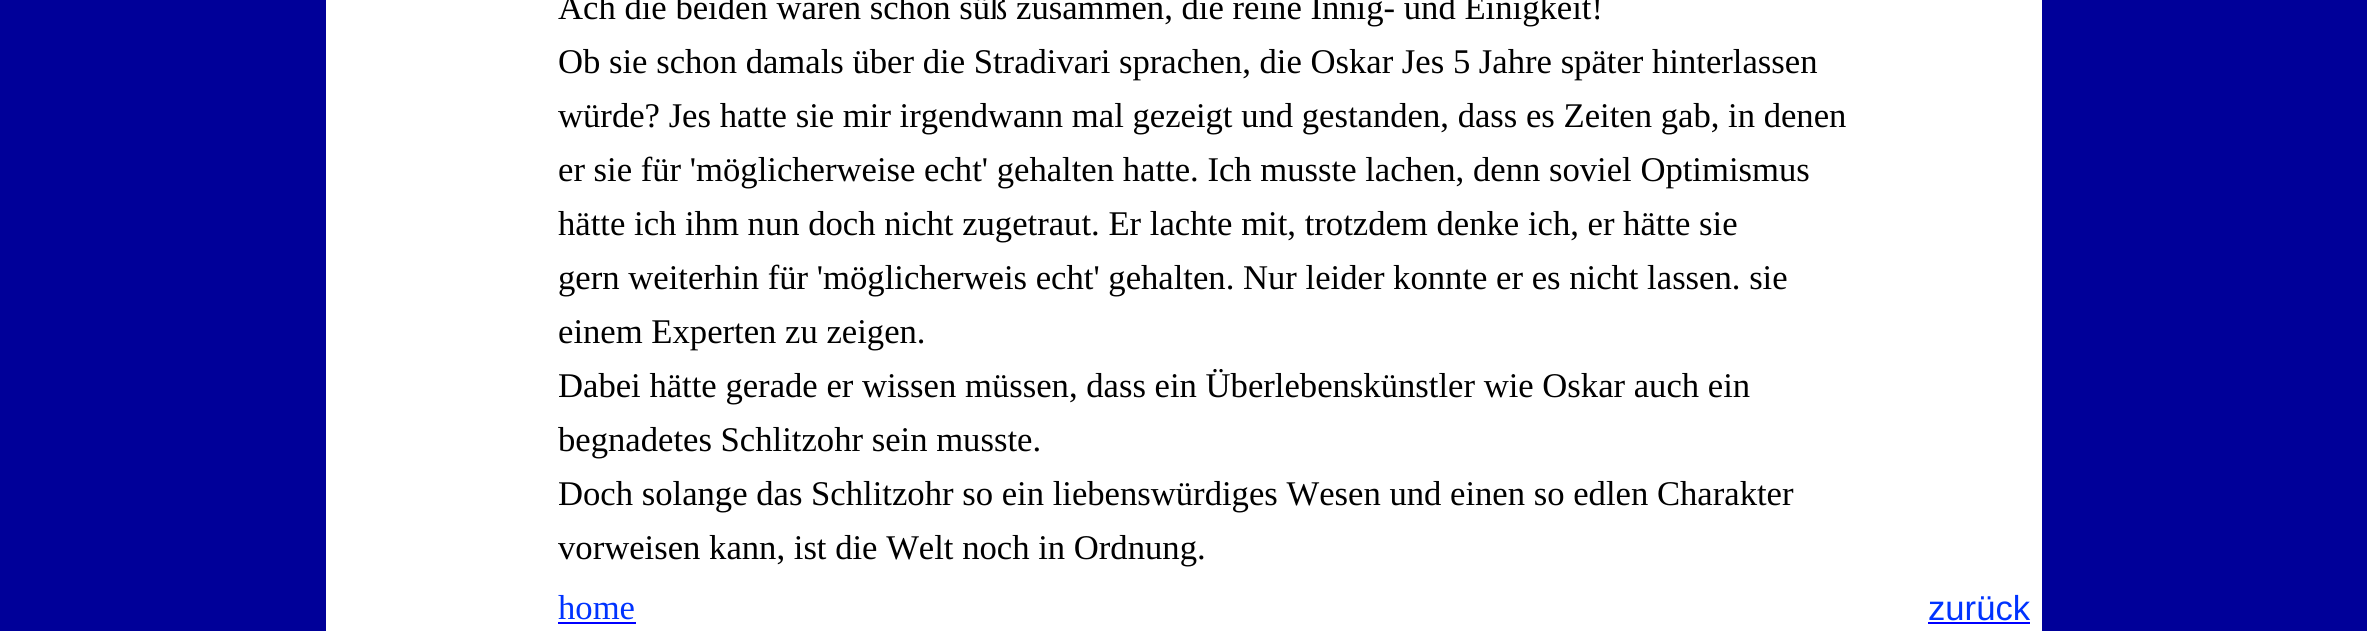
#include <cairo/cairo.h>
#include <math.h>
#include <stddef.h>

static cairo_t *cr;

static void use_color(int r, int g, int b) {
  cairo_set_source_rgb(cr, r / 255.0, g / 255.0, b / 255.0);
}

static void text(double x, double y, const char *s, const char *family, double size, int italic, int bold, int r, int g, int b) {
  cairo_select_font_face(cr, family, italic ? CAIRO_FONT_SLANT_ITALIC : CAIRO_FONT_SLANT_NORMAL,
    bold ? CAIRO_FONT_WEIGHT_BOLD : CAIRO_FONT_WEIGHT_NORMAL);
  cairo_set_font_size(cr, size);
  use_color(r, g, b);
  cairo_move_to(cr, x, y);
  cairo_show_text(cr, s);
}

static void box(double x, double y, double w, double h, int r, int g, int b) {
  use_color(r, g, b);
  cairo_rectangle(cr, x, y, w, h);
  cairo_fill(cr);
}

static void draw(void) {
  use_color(0, 0, 153);
  cairo_paint(cr);
  box(326, 0, 1716, 631, 255, 255, 255);
  box(558, 622, 78, 2, 0, 0, 255);
  box(1928, 622, 102, 2, 0, 0, 255);
  text(558, 19, "Ach die beiden waren schon süß zusammen, die reine Innig- und Einigkeit!", "Liberation Serif", 34.65, 0, 0, 0, 0, 0);
  text(558, 73, "Ob sie schon damals über die Stradivari sprachen, die Oskar Jes 5 Jahre später hinterlassen", "Liberation Serif", 34.65, 0, 0, 0, 0, 0);
  text(558, 127, "würde? Jes hatte sie mir irgendwann mal gezeigt und gestanden, dass es Zeiten gab, in denen", "Liberation Serif", 34.65, 0, 0, 0, 0, 0);
  text(558, 181, "er sie für 'möglicherweise echt' gehalten hatte. Ich musste lachen, denn soviel Optimismus", "Liberation Serif", 34.65, 0, 0, 0, 0, 0);
  text(558, 235, "hätte ich ihm nun doch nicht zugetraut. Er lachte mit, trotzdem denke ich, er hätte sie", "Liberation Serif", 34.65, 0, 0, 0, 0, 0);
  text(558, 289, "gern weiterhin für 'möglicherweis echt' gehalten. Nur leider konnte er es nicht lassen. sie", "Liberation Serif", 34.65, 0, 0, 0, 0, 0);
  text(558, 343, "einem Experten zu zeigen.", "Liberation Serif", 34.65, 0, 0, 0, 0, 0);
  text(558, 397, "Dabei hätte gerade er wissen müssen, dass ein Überlebenskünstler wie Oskar auch ein", "Liberation Serif", 34.65, 0, 0, 0, 0, 0);
  text(558, 451, "begnadetes Schlitzohr sein musste.", "Liberation Serif", 34.65, 0, 0, 0, 0, 0);
  text(558, 505, "Doch solange das Schlitzohr so ein liebenswürdiges Wesen und einen so edlen Charakter", "Liberation Serif", 34.65, 0, 0, 0, 0, 0);
  text(558, 559, "vorweisen kann, ist die Welt noch in Ordnung.", "Liberation Serif", 34.65, 0, 0, 0, 0, 0);
  text(558, 619, "home", "Liberation Serif", 34.65, 0, 0, 0, 51, 255);
  text(1928, 620, "zurück", "Liberation Sans", 34.65, 0, 0, 0, 51, 255);
}

int main(void) {
  cairo_surface_t *surface = cairo_image_surface_create(CAIRO_FORMAT_RGB24, 2367, 631);
  cr = cairo_create(surface);
  cairo_font_options_t *options = cairo_font_options_create();
  cairo_font_options_set_hint_metrics(options, CAIRO_HINT_METRICS_OFF);
  cairo_font_options_set_hint_style(options, CAIRO_HINT_STYLE_NONE);
  cairo_set_font_options(cr, options);
  cairo_set_miter_limit(cr, 4);
  draw();
  cairo_surface_write_to_png(surface, "out.png");
  cairo_font_options_destroy(options);
  cairo_destroy(cr);
  cairo_surface_destroy(surface);
  return 0;
}
